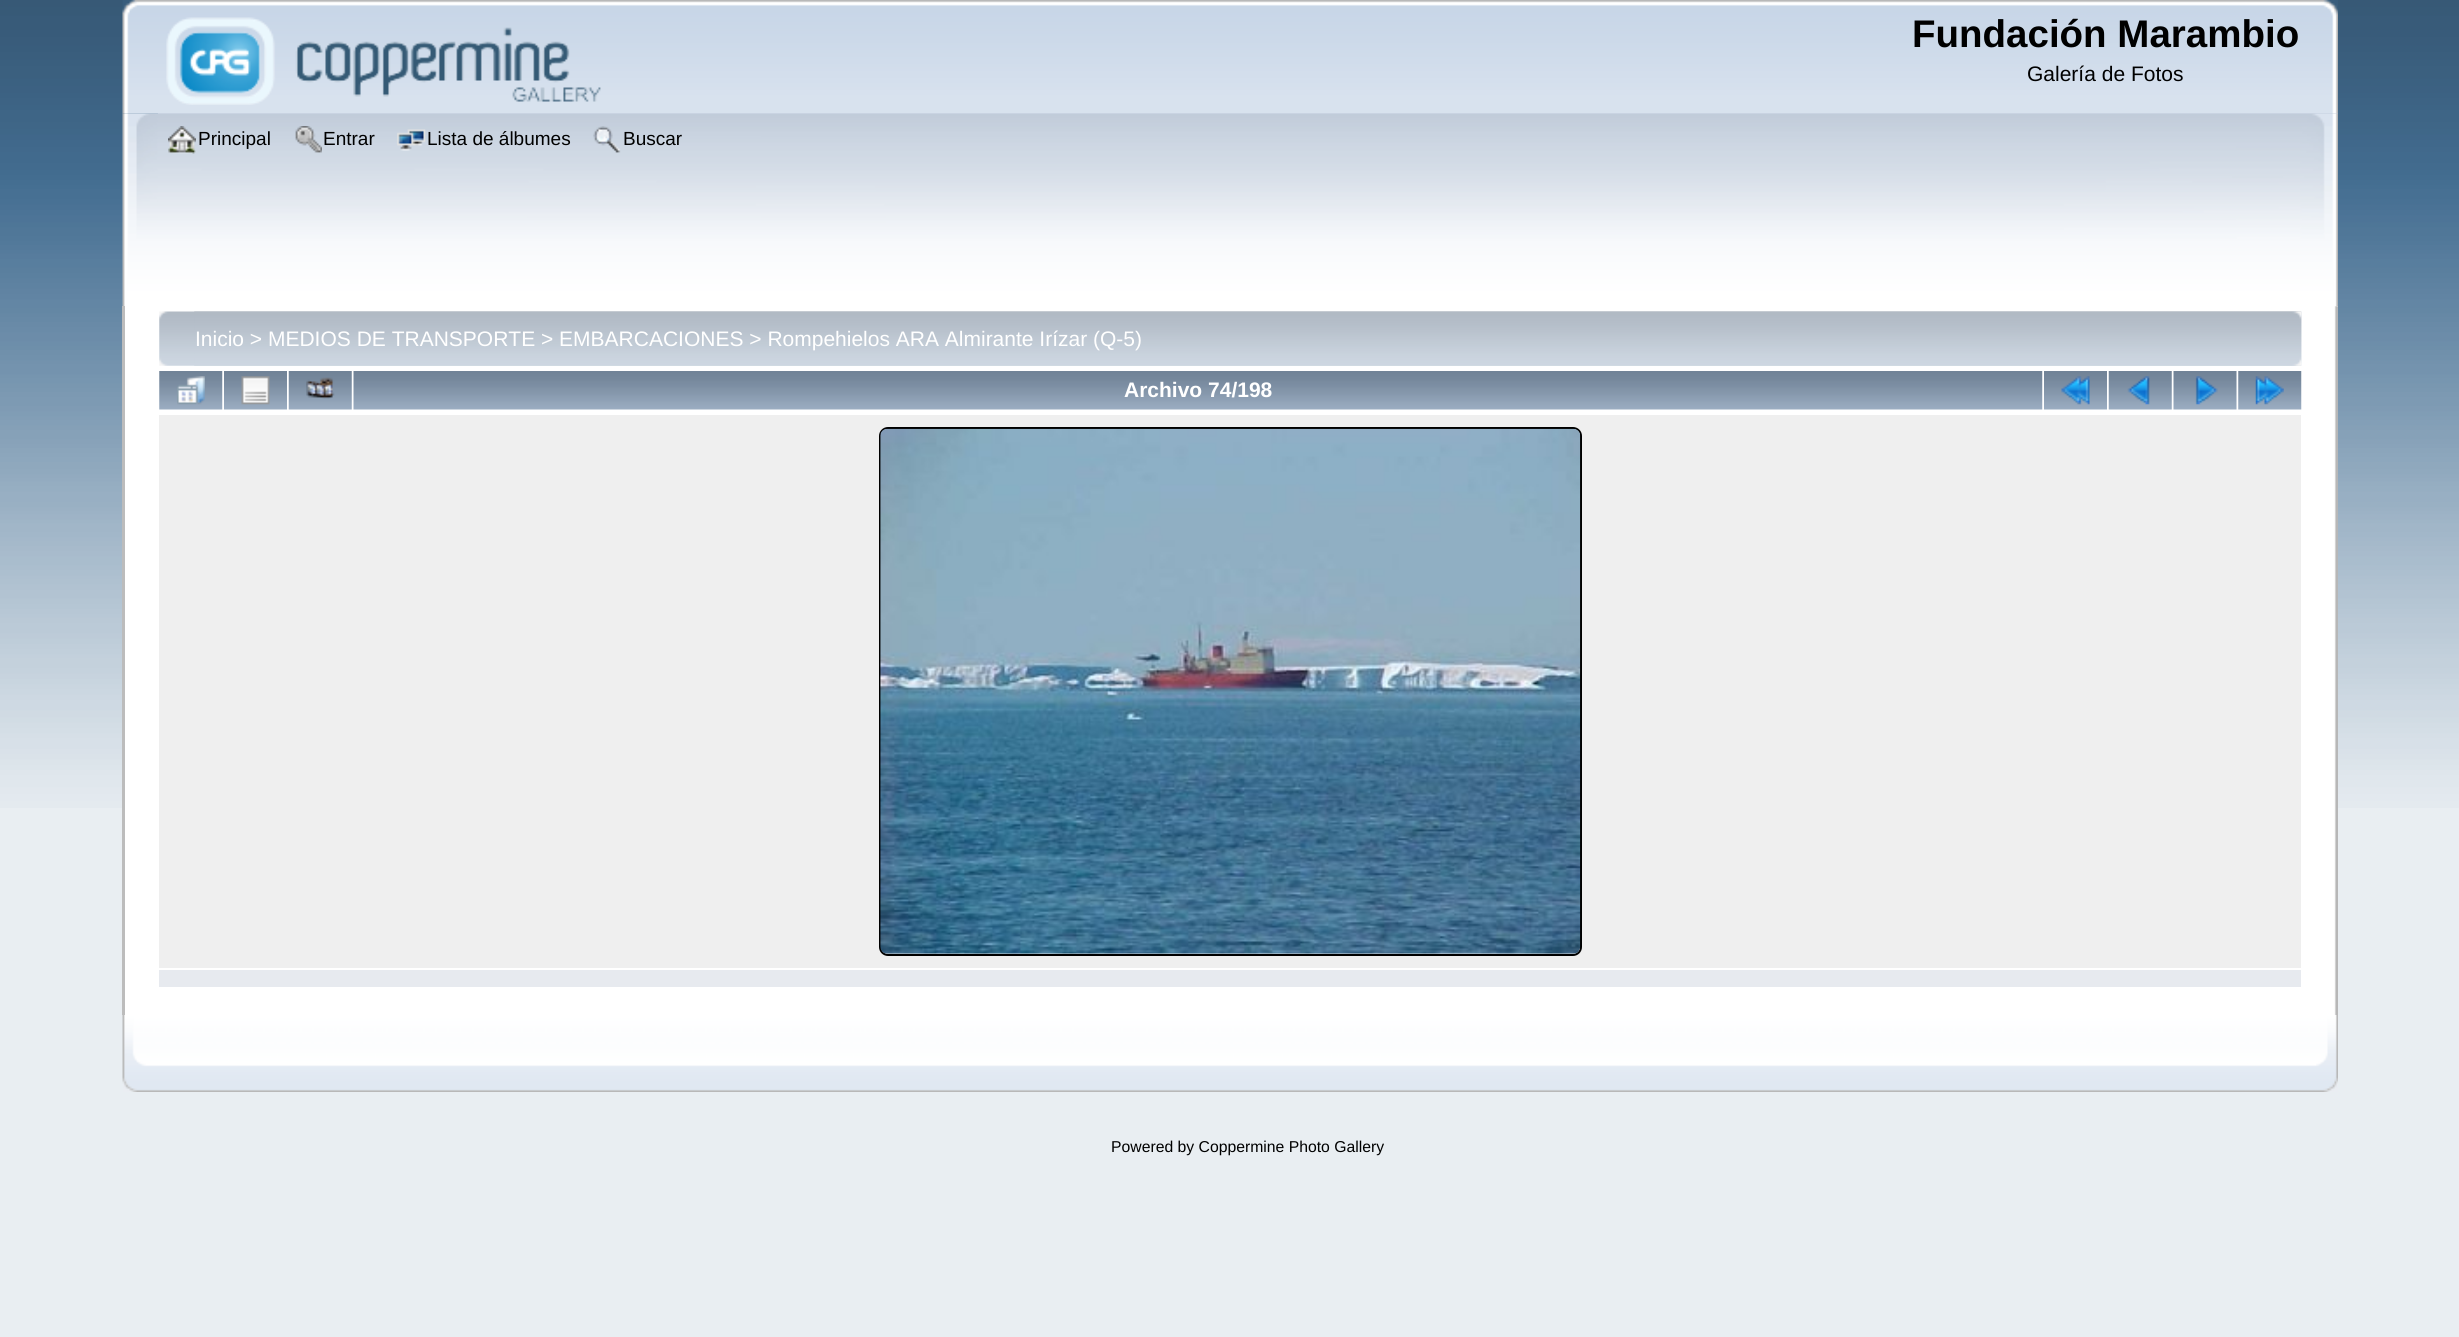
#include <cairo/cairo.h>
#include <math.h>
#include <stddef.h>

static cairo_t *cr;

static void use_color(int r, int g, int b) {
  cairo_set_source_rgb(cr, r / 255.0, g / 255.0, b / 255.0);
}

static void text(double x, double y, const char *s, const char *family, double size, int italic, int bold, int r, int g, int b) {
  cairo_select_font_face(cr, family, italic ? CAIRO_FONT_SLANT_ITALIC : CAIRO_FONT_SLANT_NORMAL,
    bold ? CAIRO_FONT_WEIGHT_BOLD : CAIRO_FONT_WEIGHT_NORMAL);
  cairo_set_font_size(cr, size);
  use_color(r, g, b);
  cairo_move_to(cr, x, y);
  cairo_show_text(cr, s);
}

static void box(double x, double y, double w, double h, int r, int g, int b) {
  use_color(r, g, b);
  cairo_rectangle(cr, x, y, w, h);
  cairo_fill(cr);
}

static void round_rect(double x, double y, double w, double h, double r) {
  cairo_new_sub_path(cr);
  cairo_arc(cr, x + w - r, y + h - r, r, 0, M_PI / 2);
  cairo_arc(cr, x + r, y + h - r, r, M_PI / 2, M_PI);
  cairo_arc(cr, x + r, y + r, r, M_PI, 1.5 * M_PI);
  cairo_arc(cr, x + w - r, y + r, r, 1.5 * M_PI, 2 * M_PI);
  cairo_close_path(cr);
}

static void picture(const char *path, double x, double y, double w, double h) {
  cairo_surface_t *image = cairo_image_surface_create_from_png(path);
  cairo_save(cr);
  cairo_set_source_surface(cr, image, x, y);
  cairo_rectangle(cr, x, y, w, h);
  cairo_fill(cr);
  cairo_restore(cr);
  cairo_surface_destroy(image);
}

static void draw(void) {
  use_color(233, 238, 242);
  cairo_paint(cr);
  picture("img_01.png", 0, 0, 2459, 808);
  picture("img_02.png", 122, 0, 2216, 114);
  picture("img_03.png", 158, 0, 2180, 114);
  picture("img_04.png", 166, 17, 435, 88);
  picture("img_05.png", 122, 113, 2216, 193);
  picture("img_06.png", 157, 113, 2181, 193);
  picture("img_07.png", 168, 126, 28, 28);
  picture("img_08.png", 295, 126, 27, 27);
  picture("img_09.png", 397, 129, 29, 22);
  picture("img_10.png", 593, 126, 28, 27);
  box(125, 306, 2213, 709, 255, 255, 255);
  box(122, 306, 3, 709, 188, 188, 188);
  picture("img_11.png", 2334, 306, 4, 709);
  picture("img_12.png", 159, 311, 2143, 55);
  picture("img_13.png", 194, 311, 2108, 55);
  picture("img_14.png", 159, 371, 64, 39);
  picture("img_15.png", 177, 376, 28, 29);
  picture("img_16.png", 224, 371, 63, 39);
  picture("img_17.png", 241, 376, 29, 29);
  picture("img_18.png", 288, 371, 64, 39);
  picture("img_19.png", 306, 377, 29, 22);
  picture("img_20.png", 353, 371, 1690, 39);
  picture("img_16.png", 2044, 371, 63, 39);
  picture("img_21.png", 2061, 376, 29, 29);
  picture("img_18.png", 2108, 371, 64, 39);
  picture("img_22.png", 2127, 376, 23, 29);
  picture("img_23.png", 2173, 371, 64, 39);
  picture("img_24.png", 2195, 376, 23, 29);
  picture("img_14.png", 2238, 371, 64, 39);
  picture("img_25.png", 2255, 376, 29, 29);
  box(159, 415, 2142, 553, 239, 239, 239);
  round_rect(880, 428, 701, 527, 8);
  use_color(0, 0, 0);
  cairo_stroke(cr);
  picture("img_26.png", 880, 428, 701, 526);
  box(159, 970, 2142, 17, 231, 234, 239);
  picture("img_27.png", 122, 1015, 2194, 77);
  picture("img_28.png", 2316, 1015, 22, 77);
  text(1912, 47, "Fundación Marambio", "Liberation Sans", 38.5, 0, 1, 0, 0, 0);
  text(2027, 81, "Galería de Fotos", "Liberation Sans", 21, 0, 0, 0, 0, 0);
  text(198, 145, "Principal", "Liberation Sans", 19, 0, 0, 0, 0, 0);
  text(323, 145, "Entrar", "Liberation Sans", 19, 0, 0, 0, 0, 0);
  text(427, 145, "Lista de álbumes", "Liberation Sans", 19, 0, 0, 0, 0, 0);
  text(623, 145, "Buscar", "Liberation Sans", 19, 0, 0, 0, 0, 0);
  text(195, 346, "Inicio > MEDIOS DE TRANSPORTE > EMBARCACIONES > Rompehielos ARA Almirante Irízar (Q-5)", "Liberation Sans", 21, 0, 0, 255, 255, 255);
  text(1124, 397, "Archivo 74/198", "Liberation Sans", 21, 0, 1, 255, 255, 255);
  text(1111, 1152, "Powered by Coppermine Photo Gallery", "Liberation Sans", 15.75, 0, 0, 0, 0, 0);
}

int main(void) {
  cairo_surface_t *surface = cairo_image_surface_create(CAIRO_FORMAT_RGB24, 2459, 1337);
  cr = cairo_create(surface);
  cairo_font_options_t *options = cairo_font_options_create();
  cairo_font_options_set_hint_metrics(options, CAIRO_HINT_METRICS_OFF);
  cairo_font_options_set_hint_style(options, CAIRO_HINT_STYLE_NONE);
  cairo_set_font_options(cr, options);
  cairo_set_miter_limit(cr, 4);
  draw();
  cairo_surface_write_to_png(surface, "out.png");
  cairo_font_options_destroy(options);
  cairo_destroy(cr);
  cairo_surface_destroy(surface);
  return 0;
}
